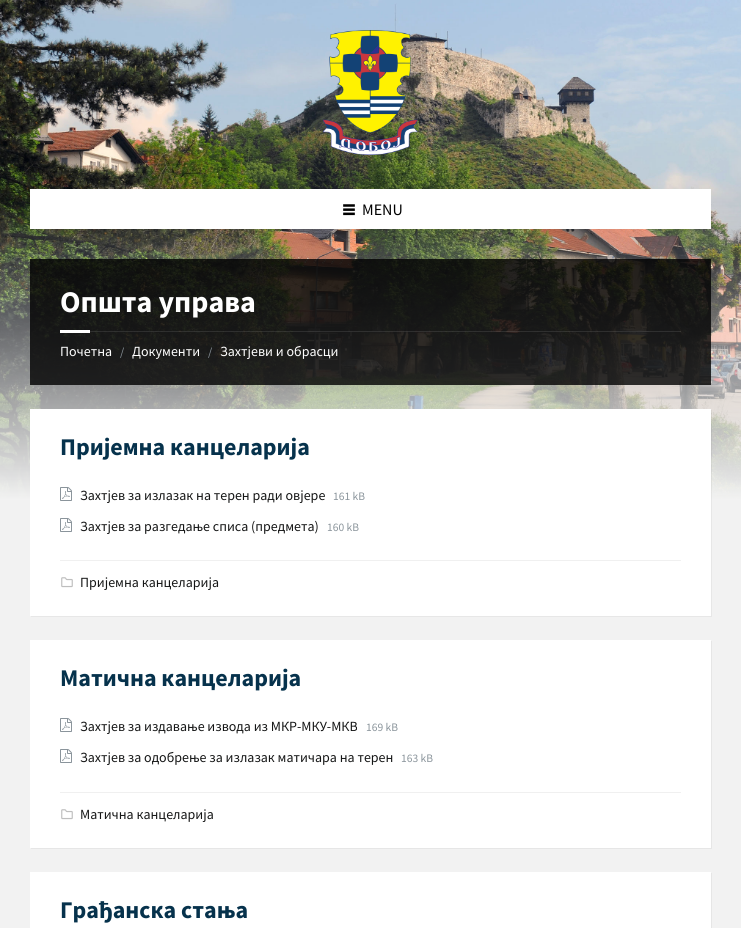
#include <cairo/cairo.h>
#include <math.h>
#include <stddef.h>

static cairo_t *cr;

static void use_color(int r, int g, int b) {
  cairo_set_source_rgb(cr, r / 255.0, g / 255.0, b / 255.0);
}

static void text(double x, double y, const char *s, const char *family, double size, int italic, int bold, int r, int g, int b) {
  cairo_select_font_face(cr, family, italic ? CAIRO_FONT_SLANT_ITALIC : CAIRO_FONT_SLANT_NORMAL,
    bold ? CAIRO_FONT_WEIGHT_BOLD : CAIRO_FONT_WEIGHT_NORMAL);
  cairo_set_font_size(cr, size);
  use_color(r, g, b);
  cairo_move_to(cr, x, y);
  cairo_show_text(cr, s);
}

static void box(double x, double y, double w, double h, int r, int g, int b) {
  use_color(r, g, b);
  cairo_rectangle(cr, x, y, w, h);
  cairo_fill(cr);
}

static void picture(const char *path, double x, double y, double w, double h) {
  cairo_surface_t *image = cairo_image_surface_create_from_png(path);
  cairo_save(cr);
  cairo_set_source_surface(cr, image, x, y);
  cairo_rectangle(cr, x, y, w, h);
  cairo_fill(cr);
  cairo_restore(cr);
  cairo_surface_destroy(image);
}

static void draw(void) {
  use_color(242, 242, 242);
  cairo_paint(cr);
  picture("img_01.png", 0, 0, 741, 500);
  picture("img_02.png", 323, 30, 95, 125);
  box(30, 189, 681, 40, 255, 255, 255);
  picture("img_03.png", 343, 204, 12, 12);
  cairo_set_source_rgba(cr, 0, 0, 0, 0.8);
  cairo_rectangle(cr, 30, 259, 681, 126);
  cairo_fill(cr);
  cairo_set_source_rgba(cr, 1, 1, 1, 0.1);
  cairo_rectangle(cr, 90, 331, 591, 1);
  cairo_fill(cr);
  box(60, 330, 30, 3, 255, 255, 255);
  cairo_set_source_rgba(cr, 0, 0, 0, 0.05);
  cairo_new_path(cr);
  cairo_move_to(cr, 31, 616);
  cairo_line_to(cr, 31, 617);
  cairo_line_to(cr, 712, 617);
  cairo_line_to(cr, 712, 410);
  cairo_line_to(cr, 711, 410);
  cairo_line_to(cr, 711, 616);
  cairo_close_path(cr);
  cairo_fill(cr);
  box(30, 409, 681, 207, 255, 255, 255);
  picture("img_04.png", 60, 487, 12, 14);
  picture("img_04.png", 60, 518, 12, 14);
  box(60, 560, 621, 1, 240, 240, 240);
  picture("img_05.png", 61, 577, 12, 11);
  use_color(230, 230, 230);
  cairo_new_path(cr);
  cairo_move_to(cr, 31, 848);
  cairo_line_to(cr, 31, 849);
  cairo_line_to(cr, 712, 849);
  cairo_line_to(cr, 712, 641);
  cairo_line_to(cr, 711, 641);
  cairo_line_to(cr, 711, 848);
  cairo_close_path(cr);
  cairo_fill(cr);
  box(30, 640, 681, 208, 255, 255, 255);
  picture("img_04.png", 60, 718, 12, 14);
  picture("img_04.png", 60, 749, 12, 14);
  box(60, 792, 621, 1, 240, 240, 240);
  picture("img_05.png", 61, 809, 12, 11);
  use_color(230, 230, 230);
  cairo_new_path(cr);
  cairo_move_to(cr, 31, 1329);
  cairo_line_to(cr, 31, 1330);
  cairo_line_to(cr, 712, 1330);
  cairo_line_to(cr, 712, 873);
  cairo_line_to(cr, 711, 873);
  cairo_line_to(cr, 711, 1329);
  cairo_close_path(cr);
  cairo_fill(cr);
  box(30, 872, 681, 56, 255, 255, 255);
  text(362, 215, "MENU", "Source Sans Pro", 16, 0, 0, 0, 0, 0);
  text(60, 312, "Општа управа", "Source Sans Pro", 30, 0, 1, 255, 255, 255);
  text(60, 356, "Почетна", "Source Sans Pro", 14, 0, 0, 255, 255, 255);
  text(120, 356, "/", "Source Sans Pro", 12, 0, 0, 138, 148, 155);
  text(132, 356, "Документи", "Source Sans Pro", 14, 0, 0, 255, 255, 255);
  text(208, 356, "/", "Source Sans Pro", 12, 0, 0, 138, 148, 155);
  text(220, 356, "Захтјеви и обрасци", "Source Sans Pro", 14, 0, 0, 255, 255, 255);
  text(60, 455, "Пријемна канцеларија", "Source Sans Pro", 24, 0, 1, 6, 50, 76);
  text(80, 500, "Захтјев за излазак на терен ради овјере", "Source Sans Pro", 14, 0, 0, 21, 22, 22);
  text(333, 500, "161 kB", "Source Sans Pro", 11.5, 0, 0, 138, 148, 155);
  text(80, 531, "Захтјев за разгедање списа (предмета)", "Source Sans Pro", 14, 0, 0, 21, 22, 22);
  text(327, 531, "160 kB", "Source Sans Pro", 11.5, 0, 0, 138, 148, 155);
  text(80, 587, "Пријемна канцеларија", "Source Sans Pro", 14, 0, 0, 21, 22, 22);
  text(60, 686, "Матична канцеларија", "Source Sans Pro", 24, 0, 1, 6, 50, 76);
  text(80, 731, "Захтјев за издавање извода из МКР-МКУ-МКВ", "Source Sans Pro", 14, 0, 0, 21, 22, 22);
  text(366, 731, "169 kB", "Source Sans Pro", 11.5, 0, 0, 138, 148, 155);
  text(80, 762, "Захтјев за одобрење за излазак матичара на терен", "Source Sans Pro", 14, 0, 0, 21, 22, 22);
  text(401, 762, "163 kB", "Source Sans Pro", 11.5, 0, 0, 138, 148, 155);
  text(80, 819, "Матична канцеларија", "Source Sans Pro", 14, 0, 0, 21, 22, 22);
  text(60, 918, "Грађанска стања", "Source Sans Pro", 24, 0, 1, 6, 50, 76);
}

int main(void) {
  cairo_surface_t *surface = cairo_image_surface_create(CAIRO_FORMAT_RGB24, 741, 928);
  cr = cairo_create(surface);
  cairo_font_options_t *options = cairo_font_options_create();
  cairo_font_options_set_hint_metrics(options, CAIRO_HINT_METRICS_OFF);
  cairo_font_options_set_hint_style(options, CAIRO_HINT_STYLE_NONE);
  cairo_set_font_options(cr, options);
  cairo_set_miter_limit(cr, 4);
  draw();
  cairo_surface_write_to_png(surface, "out.png");
  cairo_font_options_destroy(options);
  cairo_destroy(cr);
  cairo_surface_destroy(surface);
  return 0;
}
